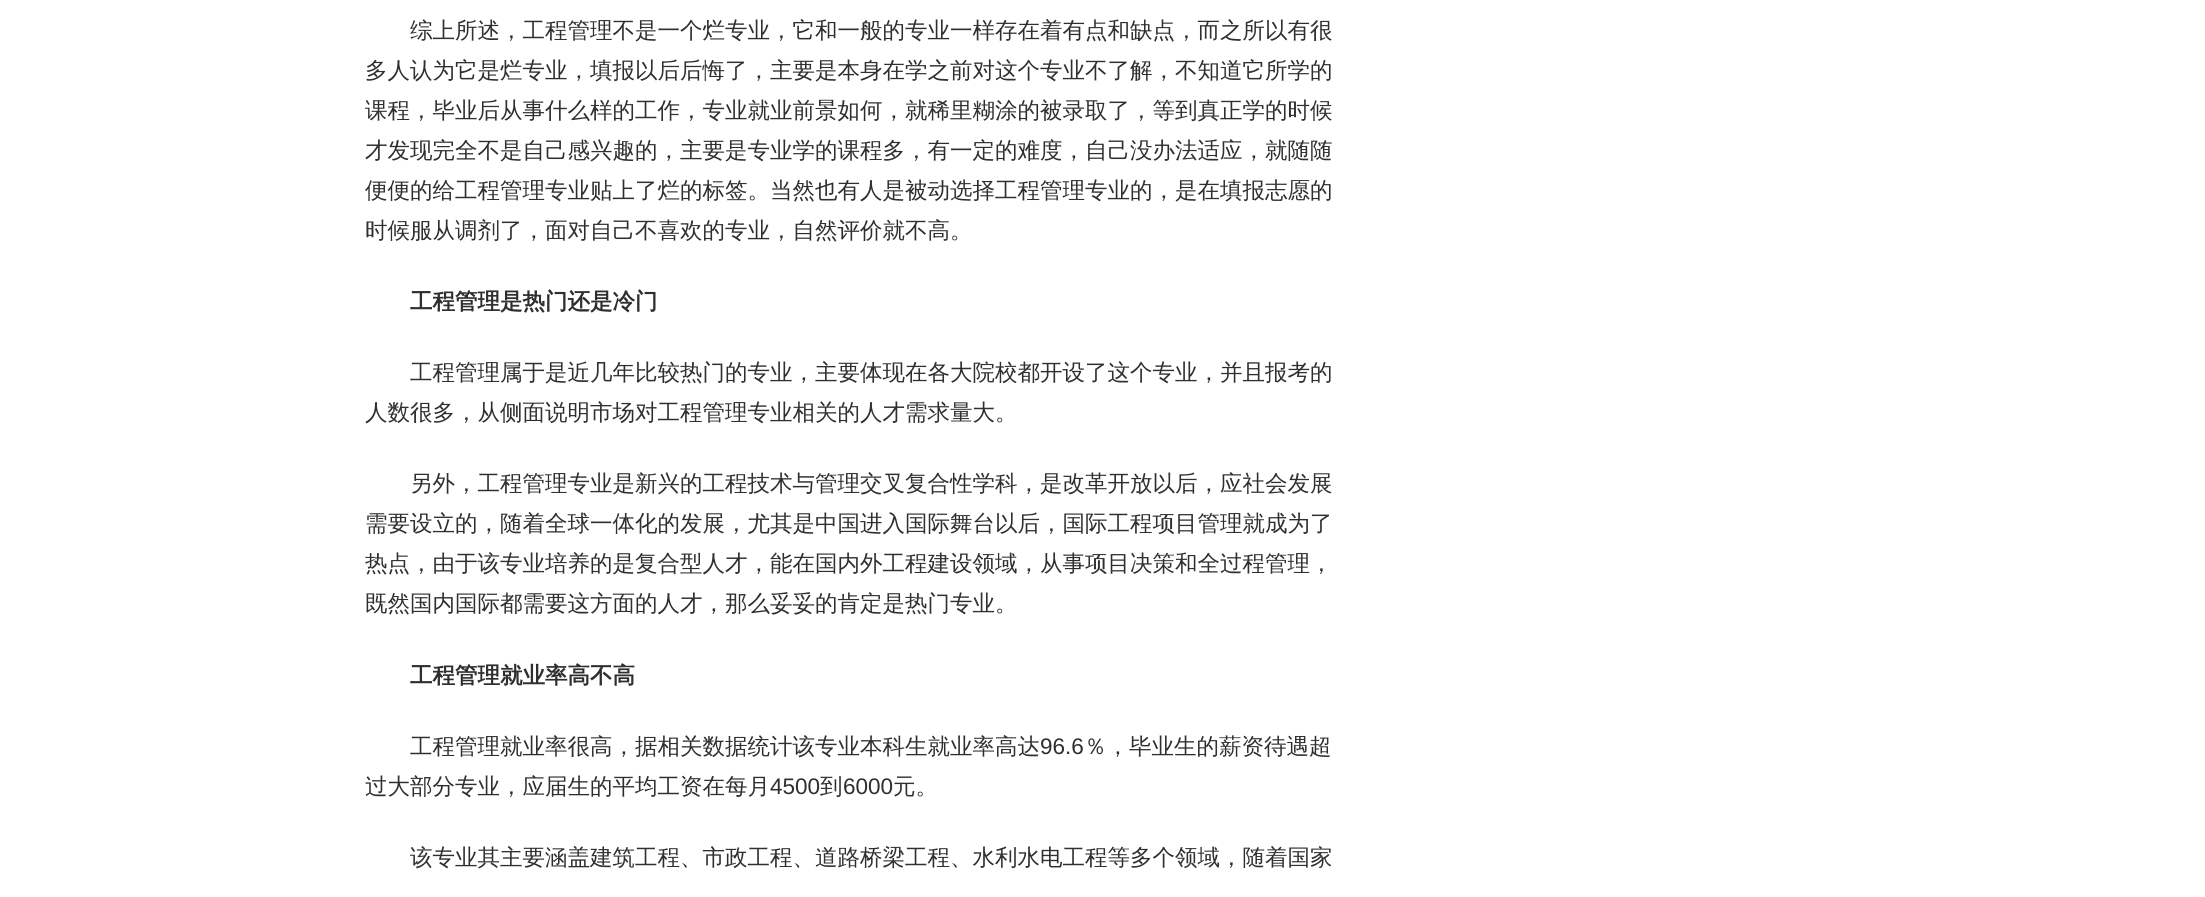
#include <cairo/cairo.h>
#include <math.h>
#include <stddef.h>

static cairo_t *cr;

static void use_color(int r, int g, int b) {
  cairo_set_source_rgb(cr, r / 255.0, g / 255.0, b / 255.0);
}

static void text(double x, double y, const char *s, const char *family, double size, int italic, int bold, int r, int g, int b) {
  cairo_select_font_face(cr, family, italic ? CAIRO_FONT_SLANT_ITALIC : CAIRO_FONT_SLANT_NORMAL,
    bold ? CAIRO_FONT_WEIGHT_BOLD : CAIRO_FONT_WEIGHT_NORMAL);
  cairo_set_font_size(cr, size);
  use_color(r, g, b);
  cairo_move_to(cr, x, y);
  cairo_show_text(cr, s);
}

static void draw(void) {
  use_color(255, 255, 255);
  cairo_paint(cr);
  text(410, 38, "综上所述，工程管理不是一个烂专业，它和一般的专业一样存在着有点和缺点，而之所以有很", "WenQuanYi Zen Hei Medium", 22.5, 0, 0, 47, 47, 47);
  text(365, 78, "多人认为它是烂专业，填报以后后悔了，主要是本身在学之前对这个专业不了解，不知道它所学的", "WenQuanYi Zen Hei Medium", 22.5, 0, 0, 47, 47, 47);
  text(365, 118, "课程，毕业后从事什么样的工作，专业就业前景如何，就稀里糊涂的被录取了，等到真正学的时候", "WenQuanYi Zen Hei Medium", 22.5, 0, 0, 47, 47, 47);
  text(365, 158, "才发现完全不是自己感兴趣的，主要是专业学的课程多，有一定的难度，自己没办法适应，就随随", "WenQuanYi Zen Hei Medium", 22.5, 0, 0, 47, 47, 47);
  text(365, 198, "便便的给工程管理专业贴上了烂的标签。当然也有人是被动选择工程管理专业的，是在填报志愿的", "WenQuanYi Zen Hei Medium", 22.5, 0, 0, 47, 47, 47);
  text(365, 238, "时候服从调剂了，面对自己不喜欢的专业，自然评价就不高。", "WenQuanYi Zen Hei Medium", 22.5, 0, 0, 47, 47, 47);
  text(410, 309, "工程管理是热门还是冷门", "WenQuanYi Zen Hei", 22.5, 0, 1, 47, 47, 47);
  text(410, 380, "工程管理属于是近几年比较热门的专业，主要体现在各大院校都开设了这个专业，并且报考的", "WenQuanYi Zen Hei Medium", 22.5, 0, 0, 47, 47, 47);
  text(365, 420, "人数很多，从侧面说明市场对工程管理专业相关的人才需求量大。", "WenQuanYi Zen Hei Medium", 22.5, 0, 0, 47, 47, 47);
  text(410, 491, "另外，工程管理专业是新兴的工程技术与管理交叉复合性学科，是改革开放以后，应社会发展", "WenQuanYi Zen Hei Medium", 22.5, 0, 0, 47, 47, 47);
  text(365, 531, "需要设立的，随着全球一体化的发展，尤其是中国进入国际舞台以后，国际工程项目管理就成为了", "WenQuanYi Zen Hei Medium", 22.5, 0, 0, 47, 47, 47);
  text(365, 571, "热点，由于该专业培养的是复合型人才，能在国内外工程建设领域，从事项目决策和全过程管理，", "WenQuanYi Zen Hei Medium", 22.5, 0, 0, 47, 47, 47);
  text(365, 611, "既然国内国际都需要这方面的人才，那么妥妥的肯定是热门专业。", "WenQuanYi Zen Hei Medium", 22.5, 0, 0, 47, 47, 47);
  text(410, 683, "工程管理就业率高不高", "WenQuanYi Zen Hei", 22.5, 0, 1, 47, 47, 47);
  text(410, 754, "工程管理就业率很高，据相关数据统计该专业本科生就业率高达", "WenQuanYi Zen Hei Medium", 22.5, 0, 0, 47, 47, 47);
  text(1040, 754, "96.6", "Liberation Sans", 22.5, 0, 0, 47, 47, 47);
  text(1084, 754, "％，毕业生的薪资待遇超", "WenQuanYi Zen Hei Medium", 22.5, 0, 0, 47, 47, 47);
  text(365, 794, "过大部分专业，应届生的平均工资在每月", "WenQuanYi Zen Hei Medium", 22.5, 0, 0, 47, 47, 47);
  text(770, 794, "4500", "Liberation Sans", 22.5, 0, 0, 47, 47, 47);
  text(820, 794, "到", "WenQuanYi Zen Hei Medium", 22.5, 0, 0, 47, 47, 47);
  text(843, 794, "6000", "Liberation Sans", 22.5, 0, 0, 47, 47, 47);
  text(893, 794, "元。", "WenQuanYi Zen Hei Medium", 22.5, 0, 0, 47, 47, 47);
  text(410, 865, "该专业其主要涵盖建筑工程、市政工程、道路桥梁工程、水利水电工程等多个领域，随着国家", "WenQuanYi Zen Hei Medium", 22.5, 0, 0, 47, 47, 47);
}

int main(void) {
  cairo_surface_t *surface = cairo_image_surface_create(CAIRO_FORMAT_RGB24, 2205, 897);
  cr = cairo_create(surface);
  cairo_font_options_t *options = cairo_font_options_create();
  cairo_font_options_set_hint_metrics(options, CAIRO_HINT_METRICS_OFF);
  cairo_font_options_set_hint_style(options, CAIRO_HINT_STYLE_NONE);
  cairo_set_font_options(cr, options);
  cairo_set_miter_limit(cr, 4);
  draw();
  cairo_surface_write_to_png(surface, "out.png");
  cairo_font_options_destroy(options);
  cairo_destroy(cr);
  cairo_surface_destroy(surface);
  return 0;
}
